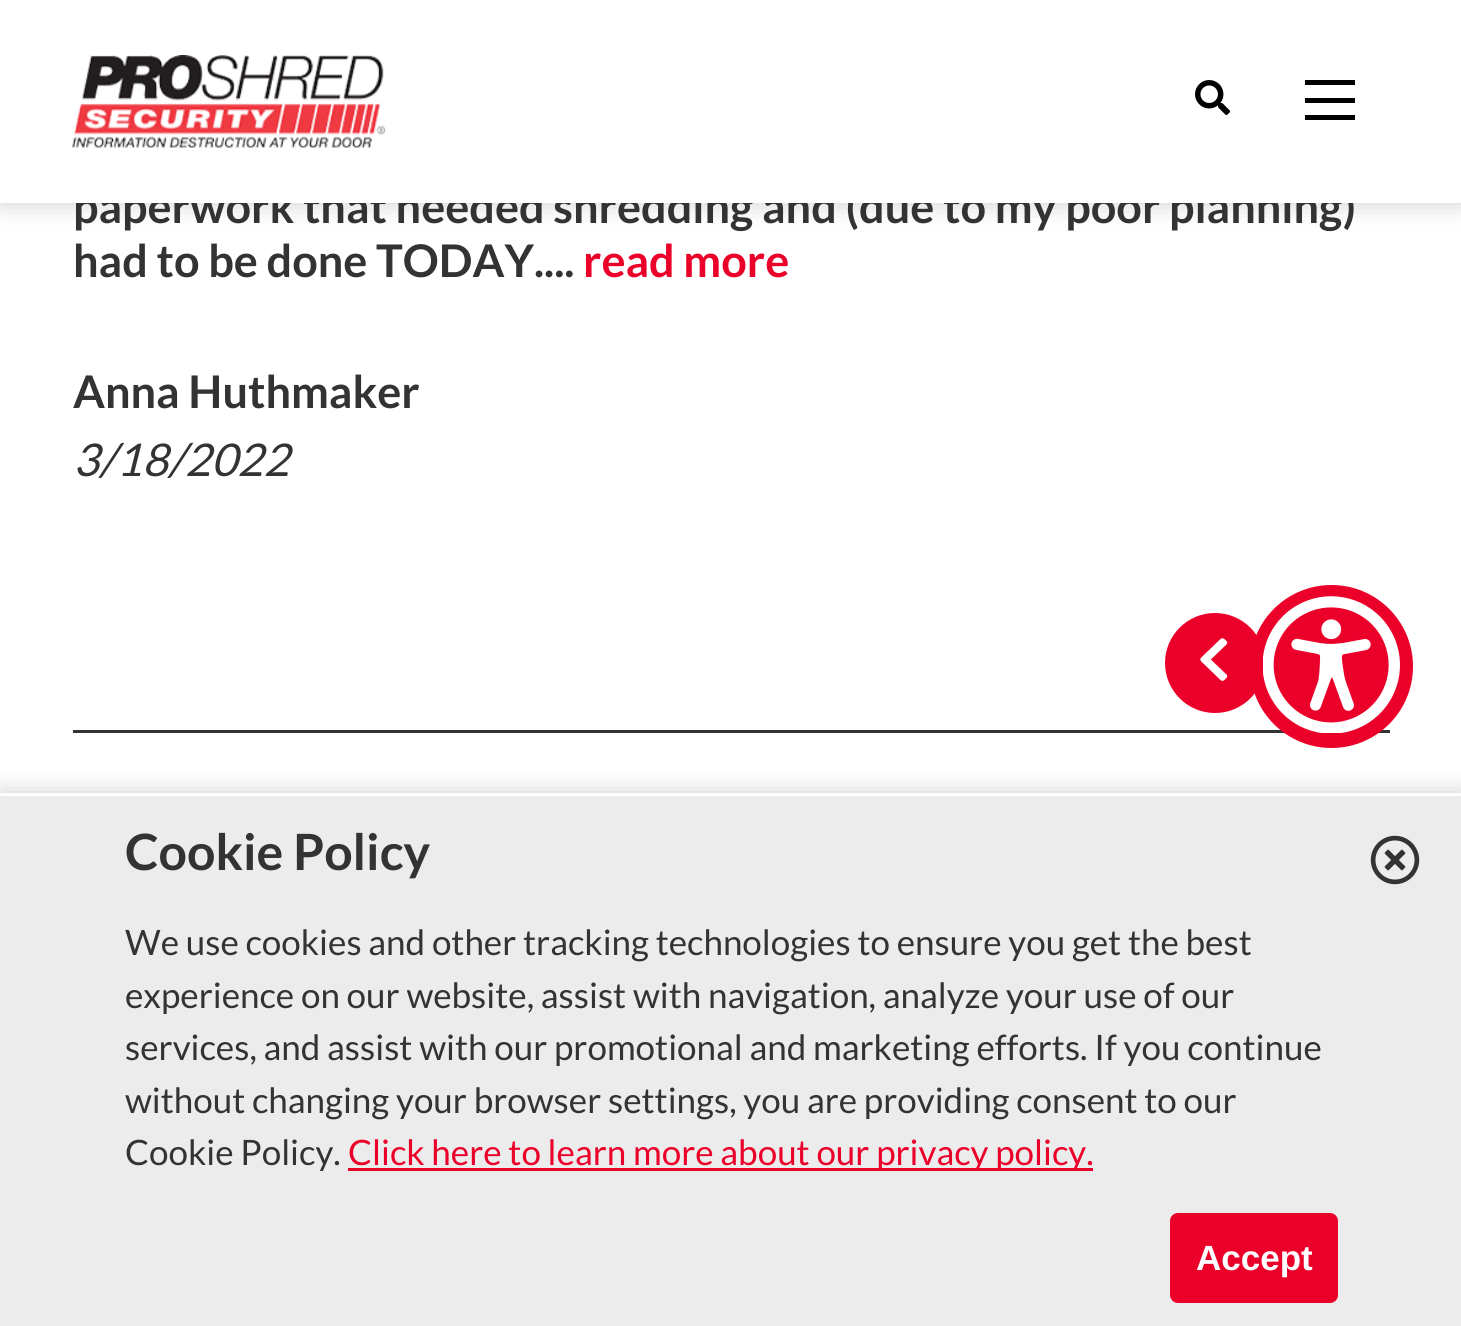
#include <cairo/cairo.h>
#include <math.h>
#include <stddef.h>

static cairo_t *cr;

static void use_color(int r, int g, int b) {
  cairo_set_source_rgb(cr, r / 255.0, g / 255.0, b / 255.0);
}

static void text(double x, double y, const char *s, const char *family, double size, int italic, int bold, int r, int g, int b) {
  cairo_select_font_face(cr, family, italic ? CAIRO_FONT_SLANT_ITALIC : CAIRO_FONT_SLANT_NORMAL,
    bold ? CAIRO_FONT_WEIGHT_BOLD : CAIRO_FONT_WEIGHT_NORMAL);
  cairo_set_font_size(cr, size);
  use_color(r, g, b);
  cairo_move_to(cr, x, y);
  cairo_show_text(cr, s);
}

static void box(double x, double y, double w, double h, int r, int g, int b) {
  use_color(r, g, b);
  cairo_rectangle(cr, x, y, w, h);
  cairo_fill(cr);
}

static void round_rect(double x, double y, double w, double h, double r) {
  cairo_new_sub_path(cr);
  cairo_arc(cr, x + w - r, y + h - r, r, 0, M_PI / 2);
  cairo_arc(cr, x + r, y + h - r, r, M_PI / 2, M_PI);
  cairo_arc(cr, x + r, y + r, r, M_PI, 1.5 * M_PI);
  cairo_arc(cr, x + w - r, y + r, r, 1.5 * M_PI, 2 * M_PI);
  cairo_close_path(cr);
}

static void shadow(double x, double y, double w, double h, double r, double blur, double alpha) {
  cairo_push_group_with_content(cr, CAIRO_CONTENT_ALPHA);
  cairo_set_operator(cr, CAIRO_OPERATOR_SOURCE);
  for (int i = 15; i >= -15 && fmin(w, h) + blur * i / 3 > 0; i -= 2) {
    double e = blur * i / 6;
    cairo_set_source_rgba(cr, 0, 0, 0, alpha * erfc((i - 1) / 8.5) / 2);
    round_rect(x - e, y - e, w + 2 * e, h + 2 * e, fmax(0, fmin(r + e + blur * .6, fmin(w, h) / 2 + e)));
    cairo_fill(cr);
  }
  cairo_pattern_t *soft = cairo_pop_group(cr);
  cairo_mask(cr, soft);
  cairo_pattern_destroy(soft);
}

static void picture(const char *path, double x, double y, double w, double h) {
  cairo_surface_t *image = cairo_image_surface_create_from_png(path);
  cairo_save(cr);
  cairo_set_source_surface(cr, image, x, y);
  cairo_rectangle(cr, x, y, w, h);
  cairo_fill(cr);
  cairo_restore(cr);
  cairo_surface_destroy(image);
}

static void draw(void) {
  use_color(255, 255, 255);
  cairo_paint(cr);
  use_color(0, 0, 0);
  shadow(0, 0, 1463, 203, 0, 12.5, 0.2);
  box(73, 730, 1317, 3, 51, 51, 51);
  use_color(235, 0, 41);
  cairo_arc(cr, 1215, 663, 50, 0, 2 * M_PI);
  cairo_fill(cr);
  picture("img_03.png", 1200, 638, 28, 43);
  cairo_arc(cr, 1331.5, 666.5, 81.5, 0, 2 * M_PI);
  cairo_fill(cr);
  picture("img_04.png", 1263, 596, 137, 137);
  use_color(0, 0, 0);
  shadow(0, 793, 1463, 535, 0, 12.5, 0.2);
  box(0, 796, 1461, 530, 236, 236, 237);
  box(0, 793, 1461, 3, 255, 255, 255);
  box(348, 1168, 745, 3, 235, 0, 41);
  round_rect(1170, 1213, 168, 90, 8);
  cairo_fill(cr);
  picture("img_05.png", 1370, 835, 50, 50);
  text(73, 223, "paperwork that needed shredding and (due to my poor planning)", "Lato", 45, 0, 1, 51, 51, 51);
  box(0, 0, 1461, 203, 255, 255, 255);
  box(1305, 115, 50, 5, 0, 0, 0);
  box(1305, 98, 50, 5, 0, 0, 0);
  box(1305, 80, 50, 5, 0, 0, 0);
  picture("img_02.png", 1195, 80, 35, 35);
  picture("img_01.png", 72, 55, 314, 93);
  text(73, 277, "had to be done TODAY....", "Lato", 45, 0, 1, 51, 51, 51);
  text(583, 277, "read more", "Lato", 45, 0, 1, 235, 0, 41);
  text(73, 408, "Anna Huthmaker", "Lato", 45, 0, 1, 51, 51, 51);
  text(73, 476, "3/18/2022", "Lato", 45, 1, 0, 51, 51, 51);
  text(125, 870, "Cookie Policy", "Lato", 50, 0, 1, 51, 51, 51);
  text(125, 955, "We use cookies and other tracking technologies to ensure you get the best", "Lato", 35, 0, 0, 51, 51, 51);
  text(125, 1008, "experience on our website, assist with navigation, analyze your use of our", "Lato", 35, 0, 0, 51, 51, 51);
  text(125, 1060, "services, and assist with our promotional and marketing efforts. If you continue", "Lato", 35, 0, 0, 51, 51, 51);
  text(125, 1113, "without changing your browser settings, you are providing consent to our", "Lato", 35, 0, 0, 51, 51, 51);
  text(125, 1165, "Cookie Policy.", "Lato", 35, 0, 0, 51, 51, 51);
  text(348, 1165, "Click here to learn more about our privacy policy.", "Lato", 35, 0, 0, 235, 0, 41);
  text(1196, 1270, "Accept", "Liberation Sans", 35, 0, 1, 255, 255, 255);
}

int main(void) {
  cairo_surface_t *surface = cairo_image_surface_create(CAIRO_FORMAT_RGB24, 1461, 1326);
  cr = cairo_create(surface);
  cairo_font_options_t *options = cairo_font_options_create();
  cairo_font_options_set_hint_metrics(options, CAIRO_HINT_METRICS_OFF);
  cairo_font_options_set_hint_style(options, CAIRO_HINT_STYLE_NONE);
  cairo_set_font_options(cr, options);
  cairo_set_miter_limit(cr, 4);
  draw();
  cairo_surface_write_to_png(surface, "out.png");
  cairo_font_options_destroy(options);
  cairo_destroy(cr);
  cairo_surface_destroy(surface);
  return 0;
}
